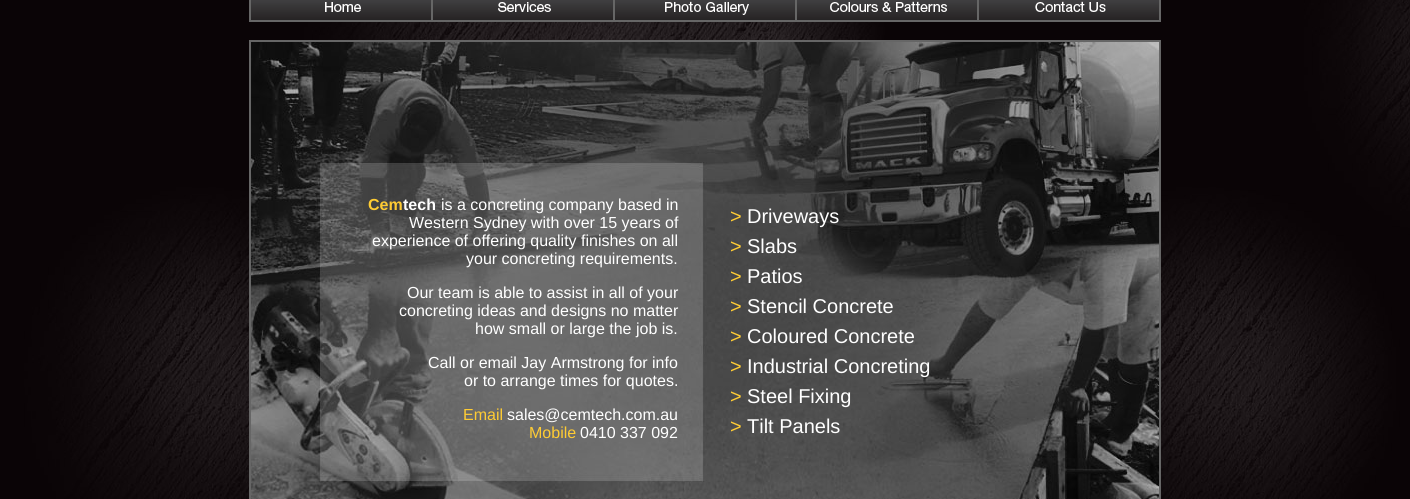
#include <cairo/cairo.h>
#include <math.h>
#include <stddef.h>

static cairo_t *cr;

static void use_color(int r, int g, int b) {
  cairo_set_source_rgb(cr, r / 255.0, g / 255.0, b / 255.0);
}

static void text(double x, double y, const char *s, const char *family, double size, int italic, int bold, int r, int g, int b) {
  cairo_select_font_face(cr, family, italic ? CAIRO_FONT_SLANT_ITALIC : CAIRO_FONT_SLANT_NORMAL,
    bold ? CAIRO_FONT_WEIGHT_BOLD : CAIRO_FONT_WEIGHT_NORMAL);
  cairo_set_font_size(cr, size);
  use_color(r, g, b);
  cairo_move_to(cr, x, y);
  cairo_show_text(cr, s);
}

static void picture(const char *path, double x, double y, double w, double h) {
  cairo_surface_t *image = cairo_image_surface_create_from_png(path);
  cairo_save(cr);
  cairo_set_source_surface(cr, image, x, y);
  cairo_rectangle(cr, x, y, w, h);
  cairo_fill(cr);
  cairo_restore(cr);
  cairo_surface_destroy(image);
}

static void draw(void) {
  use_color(255, 255, 255);
  cairo_paint(cr);
  picture("img_01.png", 0, 0, 1410, 499);
  cairo_rectangle(cr, 249.5, -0.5, 911, 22);
  use_color(102, 102, 102);
  cairo_set_line_width(cr, 1);
  cairo_stroke(cr);
  cairo_rectangle(cr, 250.5, -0.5, 181, 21);
  cairo_stroke(cr);
  picture("img_02.png", 251, 0, 180, 20);
  cairo_rectangle(cr, 432.5, -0.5, 181, 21);
  cairo_stroke(cr);
  picture("img_03.png", 433, 0, 180, 20);
  cairo_rectangle(cr, 614.5, -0.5, 181, 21);
  cairo_stroke(cr);
  picture("img_04.png", 615, 0, 180, 20);
  cairo_rectangle(cr, 796.5, -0.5, 181, 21);
  cairo_stroke(cr);
  picture("img_05.png", 797, 0, 180, 20);
  cairo_rectangle(cr, 978.5, -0.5, 181, 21);
  cairo_stroke(cr);
  picture("img_06.png", 979, 0, 180, 20);
  cairo_rectangle(cr, 249.5, 40.5, 911, 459);
  cairo_stroke(cr);
  picture("img_07.png", 251, 42, 908, 457);
  cairo_rectangle(cr, 250.5, 41.5, 909, 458);
  cairo_stroke(cr);
  text(368, 210, "Cem", "Liberation Sans", 16, 0, 1, 255, 204, 51);
  text(403, 210, "tech", "Liberation Sans", 16, 0, 1, 255, 255, 255);
  text(441, 210, "is a concreting company based in", "Liberation Sans", 16, 0, 0, 255, 255, 255);
  text(409, 228, "Western Sydney with over 15 years of", "Liberation Sans", 16, 0, 0, 255, 255, 255);
  text(372, 246, "experience of offering quality finishes on all", "Liberation Sans", 16, 0, 0, 255, 255, 255);
  text(466, 264, "your concreting requirements.", "Liberation Sans", 16, 0, 0, 255, 255, 255);
  text(407, 298, "Our team is able to assist in all of your", "Liberation Sans", 16, 0, 0, 255, 255, 255);
  text(399, 316, "concreting ideas and designs no matter", "Liberation Sans", 16, 0, 0, 255, 255, 255);
  text(475, 334, "how small or large the job is.", "Liberation Sans", 16, 0, 0, 255, 255, 255);
  text(428, 368, "Call or email Jay Armstrong for info", "Liberation Sans", 16, 0, 0, 255, 255, 255);
  text(464, 386, "or to arrange times for quotes.", "Liberation Sans", 16, 0, 0, 255, 255, 255);
  text(463, 420, "Email", "Liberation Sans", 16, 0, 0, 255, 204, 51);
  text(507, 420, "sales@cemtech.com.au", "Liberation Sans", 16, 0, 0, 255, 255, 255);
  text(529, 438, "Mobile", "Liberation Sans", 16, 0, 0, 255, 204, 51);
  text(580, 438, "0410 337 092", "Liberation Sans", 16, 0, 0, 255, 255, 255);
  text(730, 223, ">", "Liberation Sans", 20, 0, 0, 255, 204, 51);
  text(747, 223, "Driveways", "Liberation Sans", 20, 0, 0, 255, 255, 255);
  text(730, 253, ">", "Liberation Sans", 20, 0, 0, 255, 204, 51);
  text(747, 253, "Slabs", "Liberation Sans", 20, 0, 0, 255, 255, 255);
  text(730, 283, ">", "Liberation Sans", 20, 0, 0, 255, 204, 51);
  text(747, 283, "Patios", "Liberation Sans", 20, 0, 0, 255, 255, 255);
  text(730, 313, ">", "Liberation Sans", 20, 0, 0, 255, 204, 51);
  text(747, 313, "Stencil Concrete", "Liberation Sans", 20, 0, 0, 255, 255, 255);
  text(730, 343, ">", "Liberation Sans", 20, 0, 0, 255, 204, 51);
  text(747, 343, "Coloured Concrete", "Liberation Sans", 20, 0, 0, 255, 255, 255);
  text(730, 373, ">", "Liberation Sans", 20, 0, 0, 255, 204, 51);
  text(747, 373, "Industrial Concreting", "Liberation Sans", 20, 0, 0, 255, 255, 255);
  text(730, 403, ">", "Liberation Sans", 20, 0, 0, 255, 204, 51);
  text(747, 403, "Steel Fixing", "Liberation Sans", 20, 0, 0, 255, 255, 255);
  text(730, 433, ">", "Liberation Sans", 20, 0, 0, 255, 204, 51);
  text(747, 433, "Tilt Panels", "Liberation Sans", 20, 0, 0, 255, 255, 255);
}

int main(void) {
  cairo_surface_t *surface = cairo_image_surface_create(CAIRO_FORMAT_RGB24, 1410, 499);
  cr = cairo_create(surface);
  cairo_font_options_t *options = cairo_font_options_create();
  cairo_font_options_set_hint_metrics(options, CAIRO_HINT_METRICS_OFF);
  cairo_font_options_set_hint_style(options, CAIRO_HINT_STYLE_NONE);
  cairo_set_font_options(cr, options);
  cairo_set_miter_limit(cr, 4);
  draw();
  cairo_surface_write_to_png(surface, "out.png");
  cairo_font_options_destroy(options);
  cairo_destroy(cr);
  cairo_surface_destroy(surface);
  return 0;
}
